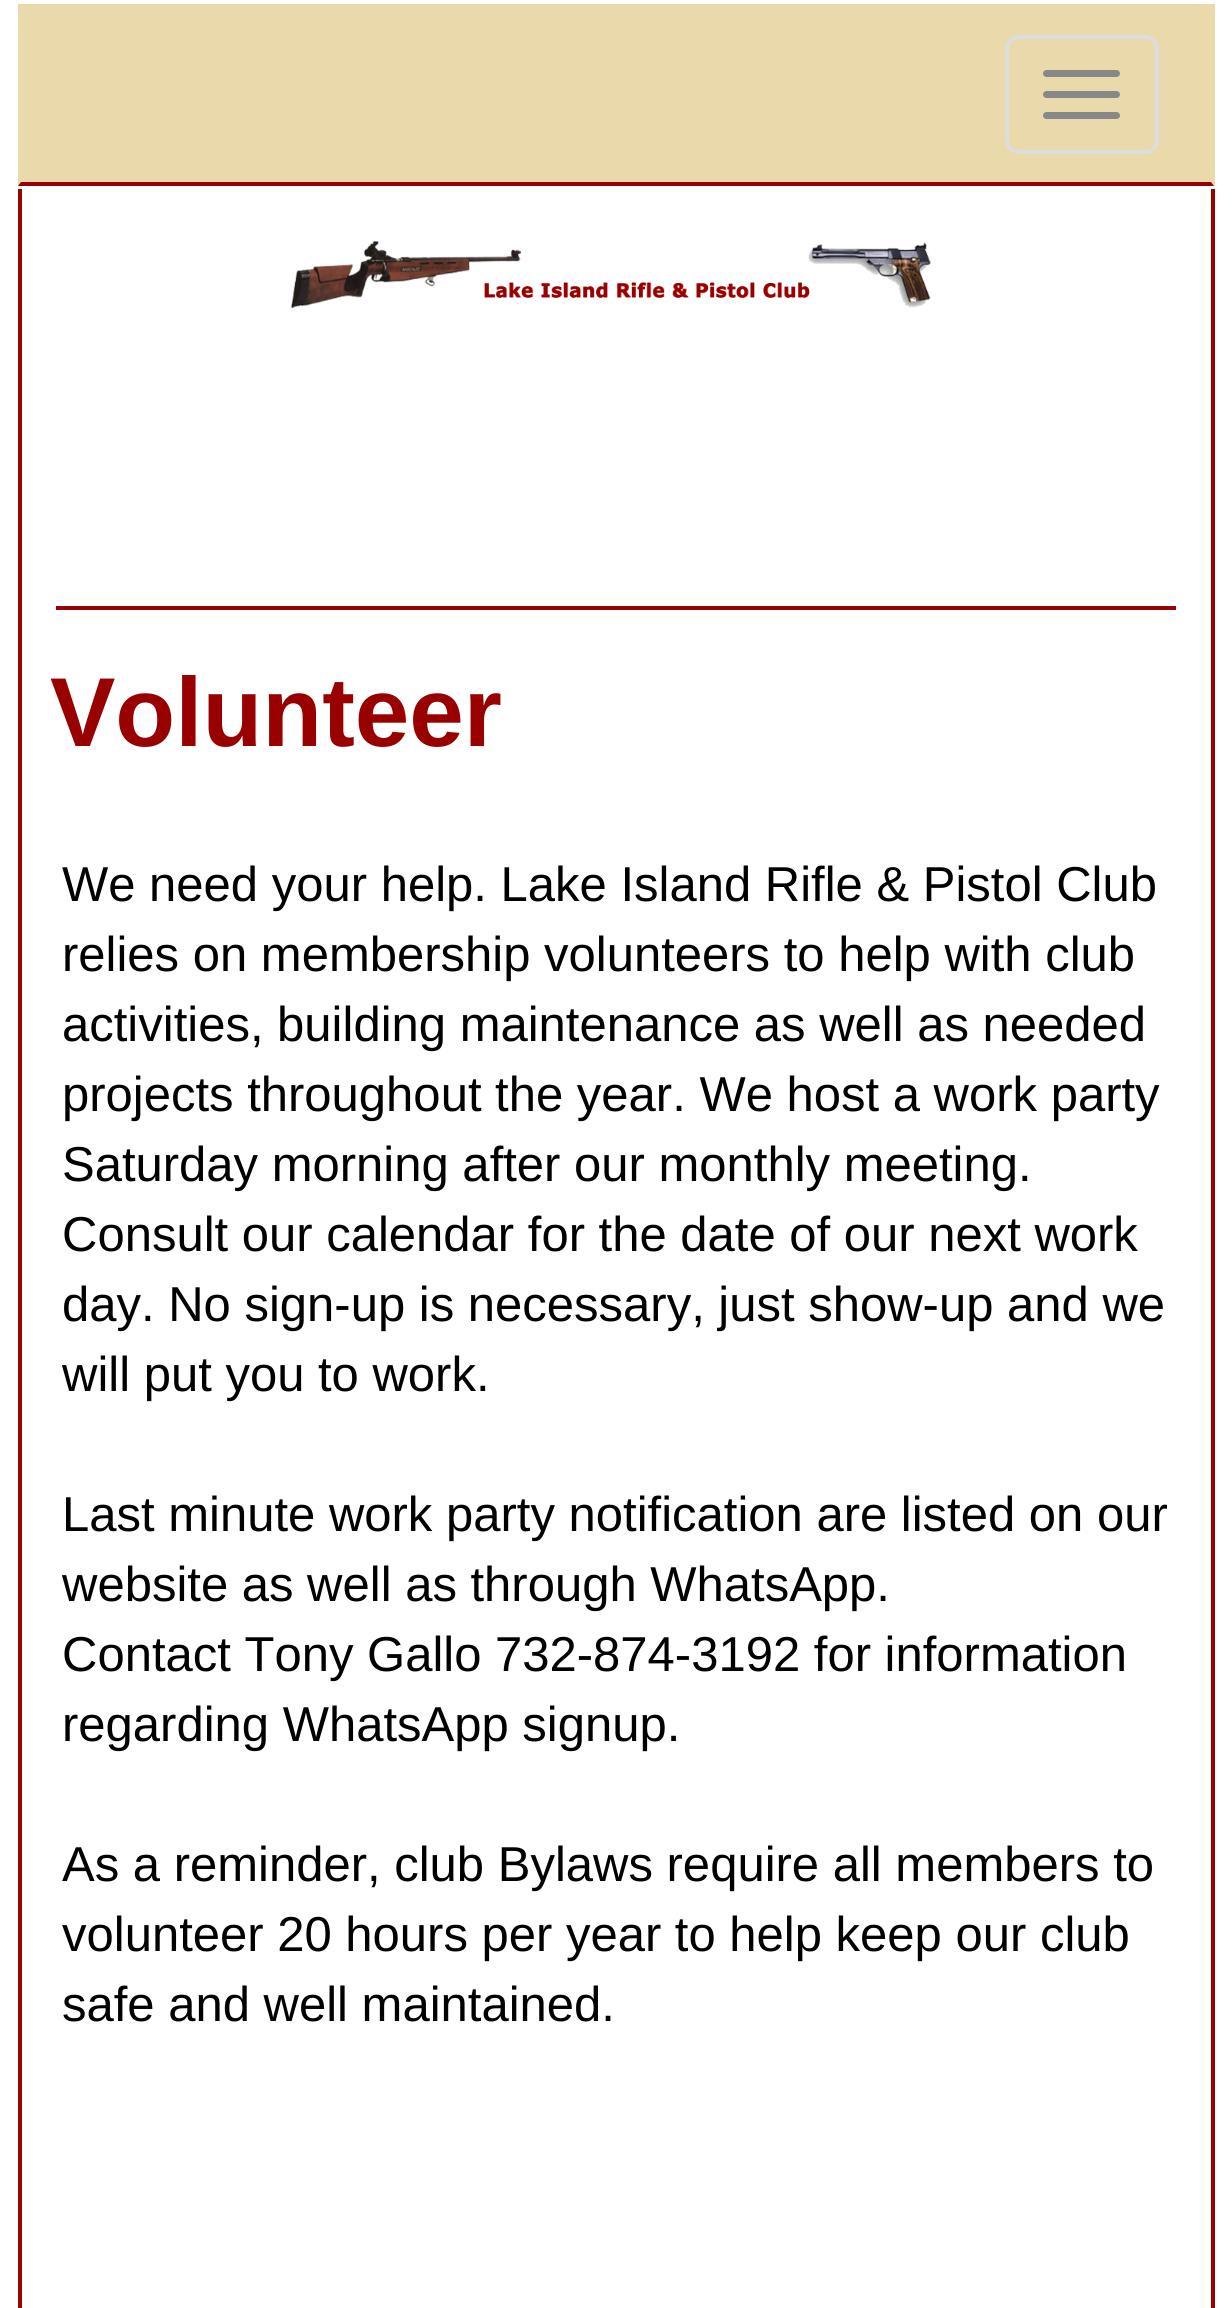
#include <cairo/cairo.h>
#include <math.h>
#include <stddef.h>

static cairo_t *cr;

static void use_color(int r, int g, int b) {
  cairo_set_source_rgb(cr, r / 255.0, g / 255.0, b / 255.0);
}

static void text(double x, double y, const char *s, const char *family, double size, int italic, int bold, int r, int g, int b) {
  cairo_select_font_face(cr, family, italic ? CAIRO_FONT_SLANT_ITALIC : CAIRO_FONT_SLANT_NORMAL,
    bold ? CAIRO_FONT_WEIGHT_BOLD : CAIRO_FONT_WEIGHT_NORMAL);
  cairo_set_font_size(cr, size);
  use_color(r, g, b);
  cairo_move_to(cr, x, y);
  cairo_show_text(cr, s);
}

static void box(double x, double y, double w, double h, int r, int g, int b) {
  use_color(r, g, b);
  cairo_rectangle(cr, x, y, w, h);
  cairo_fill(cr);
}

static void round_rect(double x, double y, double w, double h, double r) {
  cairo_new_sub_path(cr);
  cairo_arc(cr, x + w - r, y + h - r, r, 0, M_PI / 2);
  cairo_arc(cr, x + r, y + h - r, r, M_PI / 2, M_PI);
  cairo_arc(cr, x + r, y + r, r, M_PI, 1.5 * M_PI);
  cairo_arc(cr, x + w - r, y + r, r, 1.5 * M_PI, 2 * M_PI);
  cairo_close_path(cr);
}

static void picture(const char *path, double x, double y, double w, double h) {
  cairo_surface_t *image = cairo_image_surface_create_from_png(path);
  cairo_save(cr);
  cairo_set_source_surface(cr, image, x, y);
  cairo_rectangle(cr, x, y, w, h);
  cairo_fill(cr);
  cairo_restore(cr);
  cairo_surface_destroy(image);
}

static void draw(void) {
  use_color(255, 255, 255);
  cairo_paint(cr);
  box(18, 4, 1197, 182, 234, 217, 171);
  use_color(153, 0, 0);
  cairo_new_path(cr);
  cairo_move_to(cr, 1214, 186);
  cairo_line_to(cr, 18, 186);
  cairo_line_to(cr, 21, 182);
  cairo_line_to(cr, 1211, 182);
  cairo_close_path(cr);
  cairo_fill(cr);
  round_rect(1007, 37, 150, 115, 12);
  use_color(221, 221, 221);
  cairo_set_line_width(cr, 4);
  cairo_stroke(cr);
  use_color(136, 136, 136);
  round_rect(1043, 70, 77, 7, 3.5);
  cairo_fill(cr);
  round_rect(1043, 91, 77, 7, 3.5);
  cairo_fill(cr);
  round_rect(1043, 112, 77, 7, 3.5);
  cairo_fill(cr);
  box(1211, 189, 4, 2119, 153, 0, 0);
  box(18, 189, 4, 2119, 153, 0, 0);
  box(56, 606, 1120, 4, 153, 0, 0);
  picture("img_01.png", 290, 241, 641, 67);
  text(50, 746, "Volunteer", "Liberation Sans", 98, 0, 1, 153, 0, 0);
  text(62, 901, "We need your help. Lake Island Rifle & Pistol Club", "Liberation Sans", 49, 0, 0, 0, 0, 0);
  text(62, 971, "relies on membership volunteers to help with club", "Liberation Sans", 49, 0, 0, 0, 0, 0);
  text(62, 1041, "activities, building maintenance as well as needed", "Liberation Sans", 49, 0, 0, 0, 0, 0);
  text(62, 1111, "projects throughout the year. We host a work party", "Liberation Sans", 49, 0, 0, 0, 0, 0);
  text(62, 1181, "Saturday morning after our monthly meeting.", "Liberation Sans", 49, 0, 0, 0, 0, 0);
  text(62, 1251, "Consult our calendar for the date of our next work", "Liberation Sans", 49, 0, 0, 0, 0, 0);
  text(62, 1321, "day. No sign-up is necessary, just show-up and we", "Liberation Sans", 49, 0, 0, 0, 0, 0);
  text(62, 1391, "will put you to work.", "Liberation Sans", 49, 0, 0, 0, 0, 0);
  text(62, 1531, "Last minute work party notification are listed on our", "Liberation Sans", 49, 0, 0, 0, 0, 0);
  text(62, 1601, "website as well as through WhatsApp.", "Liberation Sans", 49, 0, 0, 0, 0, 0);
  text(62, 1671, "Contact Tony Gallo 732-874-3192 for information", "Liberation Sans", 49, 0, 0, 0, 0, 0);
  text(62, 1741, "regarding WhatsApp signup.", "Liberation Sans", 49, 0, 0, 0, 0, 0);
  text(62, 1881, "As a reminder, club Bylaws require all members to", "Liberation Sans", 49, 0, 0, 0, 0, 0);
  text(62, 1951, "volunteer 20 hours per year to help keep our club", "Liberation Sans", 49, 0, 0, 0, 0, 0);
  text(62, 2021, "safe and well maintained.", "Liberation Sans", 49, 0, 0, 0, 0, 0);
}

int main(void) {
  cairo_surface_t *surface = cairo_image_surface_create(CAIRO_FORMAT_RGB24, 1232, 2308);
  cr = cairo_create(surface);
  cairo_font_options_t *options = cairo_font_options_create();
  cairo_font_options_set_hint_metrics(options, CAIRO_HINT_METRICS_OFF);
  cairo_font_options_set_hint_style(options, CAIRO_HINT_STYLE_NONE);
  cairo_set_font_options(cr, options);
  cairo_set_miter_limit(cr, 4);
  draw();
  cairo_surface_write_to_png(surface, "out.png");
  cairo_font_options_destroy(options);
  cairo_destroy(cr);
  cairo_surface_destroy(surface);
  return 0;
}
